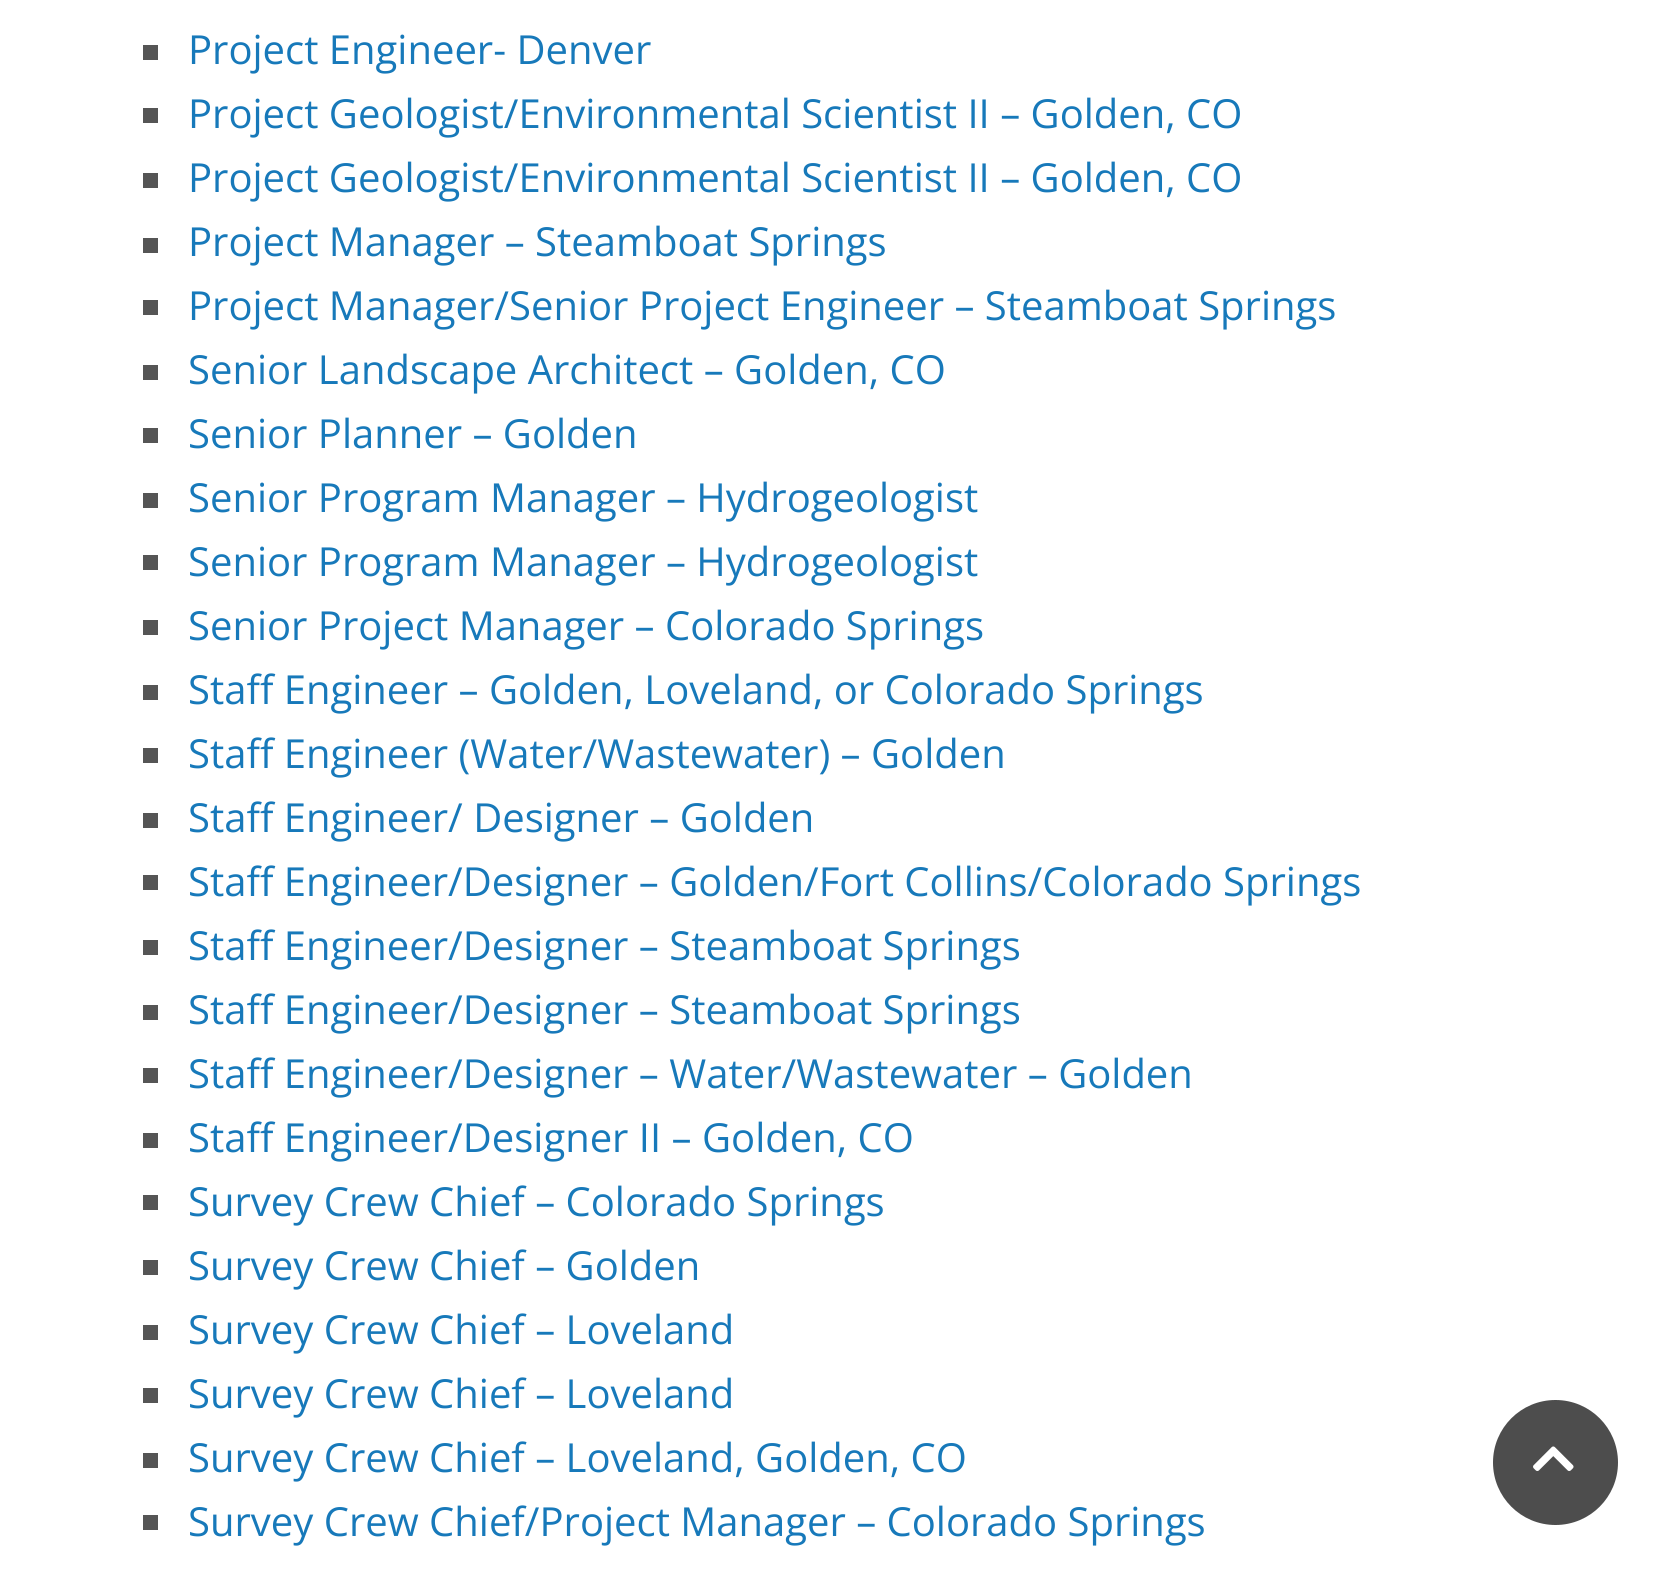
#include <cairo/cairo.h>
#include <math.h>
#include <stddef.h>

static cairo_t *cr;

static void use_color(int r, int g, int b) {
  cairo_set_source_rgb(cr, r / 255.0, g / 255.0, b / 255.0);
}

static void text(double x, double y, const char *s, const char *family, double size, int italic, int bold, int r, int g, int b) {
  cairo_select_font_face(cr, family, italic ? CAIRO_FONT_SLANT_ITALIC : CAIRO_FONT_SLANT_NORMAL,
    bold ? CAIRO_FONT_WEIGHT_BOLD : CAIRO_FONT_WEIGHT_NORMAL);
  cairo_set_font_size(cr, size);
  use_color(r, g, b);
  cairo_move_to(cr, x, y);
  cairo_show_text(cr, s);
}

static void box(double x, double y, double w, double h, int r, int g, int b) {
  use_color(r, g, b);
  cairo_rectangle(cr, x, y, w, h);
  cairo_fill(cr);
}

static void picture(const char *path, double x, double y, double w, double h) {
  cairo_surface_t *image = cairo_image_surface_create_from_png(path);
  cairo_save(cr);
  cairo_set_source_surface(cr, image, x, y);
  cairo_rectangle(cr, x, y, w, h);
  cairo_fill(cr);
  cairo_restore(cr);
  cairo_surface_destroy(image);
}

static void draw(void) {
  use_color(255, 255, 255);
  cairo_paint(cr);
  box(143, 45, 15, 15, 85, 85, 85);
  box(143, 108, 15, 15, 85, 85, 85);
  box(143, 173, 15, 15, 85, 85, 85);
  box(143, 238, 15, 15, 85, 85, 85);
  box(143, 300, 15, 15, 85, 85, 85);
  box(143, 365, 15, 15, 85, 85, 85);
  box(143, 428, 15, 15, 85, 85, 85);
  box(143, 493, 15, 15, 85, 85, 85);
  box(143, 555, 15, 15, 85, 85, 85);
  box(143, 620, 15, 15, 85, 85, 85);
  box(143, 685, 15, 15, 85, 85, 85);
  box(143, 748, 15, 15, 85, 85, 85);
  box(143, 813, 15, 15, 85, 85, 85);
  box(143, 875, 15, 15, 85, 85, 85);
  box(143, 940, 15, 15, 85, 85, 85);
  box(143, 1005, 15, 15, 85, 85, 85);
  box(143, 1068, 15, 15, 85, 85, 85);
  box(143, 1133, 15, 15, 85, 85, 85);
  box(143, 1195, 15, 15, 85, 85, 85);
  box(143, 1260, 15, 15, 85, 85, 85);
  box(143, 1325, 15, 15, 85, 85, 85);
  box(143, 1388, 15, 15, 85, 85, 85);
  box(143, 1453, 15, 15, 85, 85, 85);
  box(143, 1515, 15, 15, 85, 85, 85);
  use_color(77, 77, 77);
  cairo_arc(cr, 1555.5, 1462.5, 62.5, 0, 2 * M_PI);
  cairo_fill(cr);
  picture("img_01.png", 1533, 1446, 41, 25);
  text(188, 64, "Project Engineer- Denver", "Open Sans", 40, 0, 0, 23, 121, 186);
  text(188, 128, "Project Geologist/Environmental Scientist II – Golden, CO", "Open Sans", 40, 0, 0, 23, 121, 186);
  text(188, 192, "Project Geologist/Environmental Scientist II – Golden, CO", "Open Sans", 40, 0, 0, 23, 121, 186);
  text(188, 256, "Project Manager – Steamboat Springs", "Open Sans", 40, 0, 0, 23, 121, 186);
  text(188, 320, "Project Manager/Senior Project Engineer – Steamboat Springs", "Open Sans", 40, 0, 0, 23, 121, 186);
  text(188, 384, "Senior Landscape Architect – Golden, CO", "Open Sans", 40, 0, 0, 23, 121, 186);
  text(188, 448, "Senior Planner – Golden", "Open Sans", 40, 0, 0, 23, 121, 186);
  text(188, 512, "Senior Program Manager – Hydrogeologist", "Open Sans", 40, 0, 0, 23, 121, 186);
  text(188, 576, "Senior Program Manager – Hydrogeologist", "Open Sans", 40, 0, 0, 23, 121, 186);
  text(188, 640, "Senior Project Manager – Colorado Springs", "Open Sans", 40, 0, 0, 23, 121, 186);
  text(188, 704, "Staff Engineer – Golden, Loveland, or Colorado Springs", "Open Sans", 40, 0, 0, 23, 121, 186);
  text(188, 768, "Staff Engineer (Water/Wastewater) – Golden", "Open Sans", 40, 0, 0, 23, 121, 186);
  text(188, 832, "Staff Engineer/ Designer – Golden", "Open Sans", 40, 0, 0, 23, 121, 186);
  text(188, 896, "Staff Engineer/Designer – Golden/Fort Collins/Colorado Springs", "Open Sans", 40, 0, 0, 23, 121, 186);
  text(188, 960, "Staff Engineer/Designer – Steamboat Springs", "Open Sans", 40, 0, 0, 23, 121, 186);
  text(188, 1024, "Staff Engineer/Designer – Steamboat Springs", "Open Sans", 40, 0, 0, 23, 121, 186);
  text(188, 1088, "Staff Engineer/Designer – Water/Wastewater – Golden", "Open Sans", 40, 0, 0, 23, 121, 186);
  text(188, 1152, "Staff Engineer/Designer II – Golden, CO", "Open Sans", 40, 0, 0, 23, 121, 186);
  text(188, 1216, "Survey Crew Chief – Colorado Springs", "Open Sans", 40, 0, 0, 23, 121, 186);
  text(188, 1280, "Survey Crew Chief – Golden", "Open Sans", 40, 0, 0, 23, 121, 186);
  text(188, 1344, "Survey Crew Chief – Loveland", "Open Sans", 40, 0, 0, 23, 121, 186);
  text(188, 1408, "Survey Crew Chief – Loveland", "Open Sans", 40, 0, 0, 23, 121, 186);
  text(188, 1472, "Survey Crew Chief – Loveland, Golden, CO", "Open Sans", 40, 0, 0, 23, 121, 186);
  text(188, 1536, "Survey Crew Chief/Project Manager – Colorado Springs", "Open Sans", 40, 0, 0, 23, 121, 186);
}

int main(void) {
  cairo_surface_t *surface = cairo_image_surface_create(CAIRO_FORMAT_RGB24, 1667, 1575);
  cr = cairo_create(surface);
  cairo_font_options_t *options = cairo_font_options_create();
  cairo_font_options_set_hint_metrics(options, CAIRO_HINT_METRICS_OFF);
  cairo_font_options_set_hint_style(options, CAIRO_HINT_STYLE_NONE);
  cairo_set_font_options(cr, options);
  cairo_set_miter_limit(cr, 4);
  draw();
  cairo_surface_write_to_png(surface, "out.png");
  cairo_font_options_destroy(options);
  cairo_destroy(cr);
  cairo_surface_destroy(surface);
  return 0;
}
